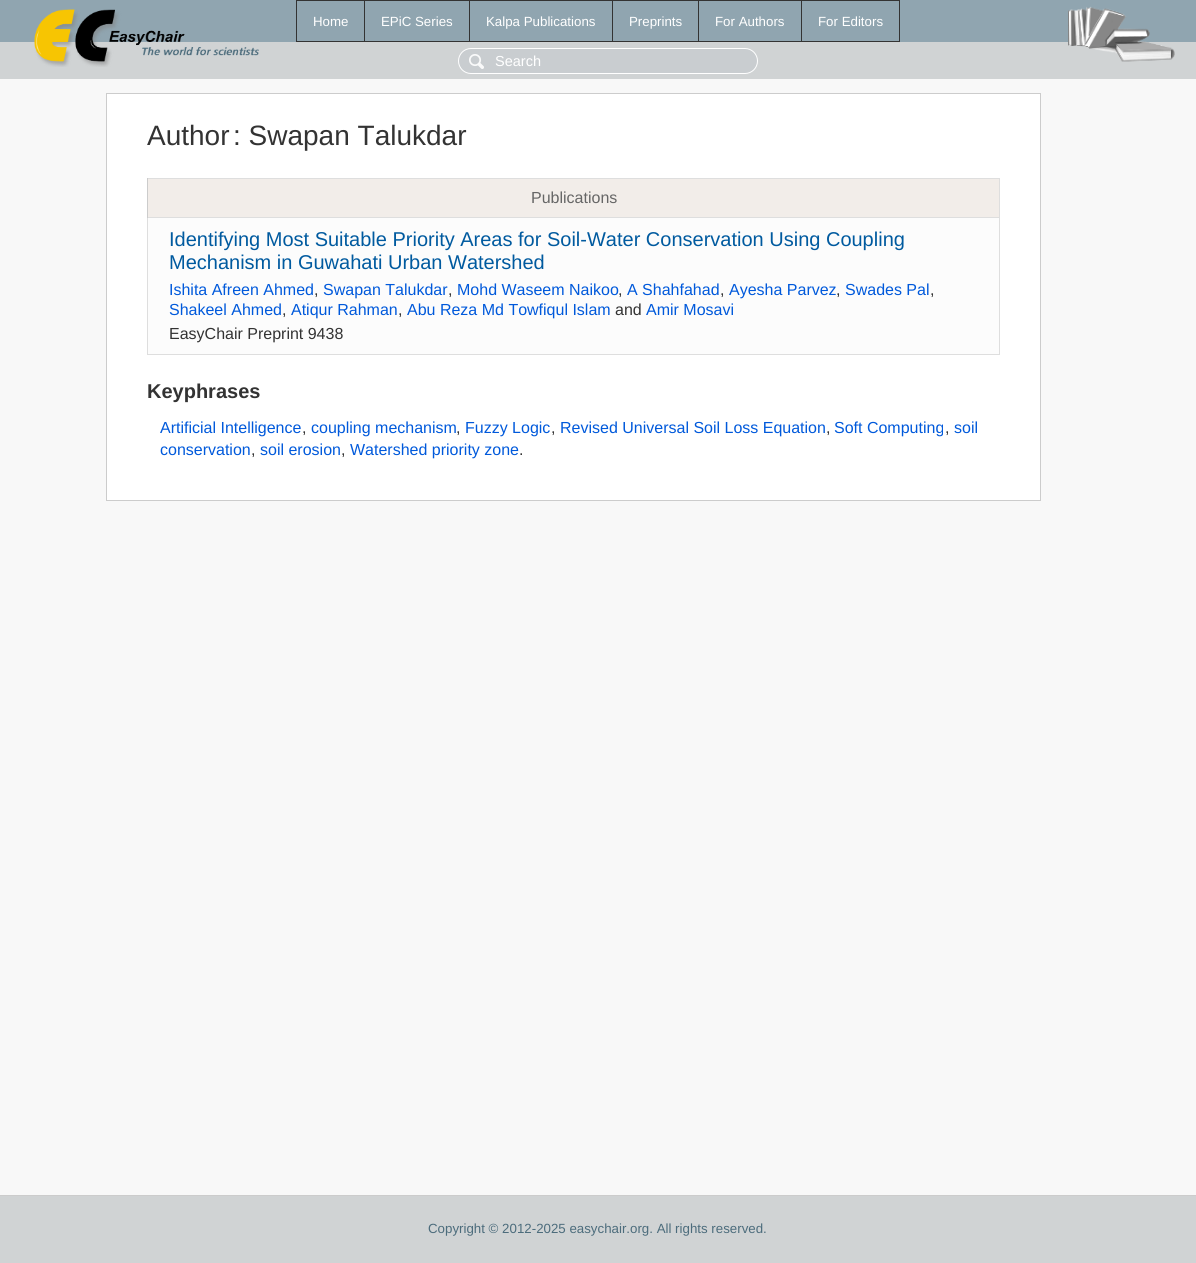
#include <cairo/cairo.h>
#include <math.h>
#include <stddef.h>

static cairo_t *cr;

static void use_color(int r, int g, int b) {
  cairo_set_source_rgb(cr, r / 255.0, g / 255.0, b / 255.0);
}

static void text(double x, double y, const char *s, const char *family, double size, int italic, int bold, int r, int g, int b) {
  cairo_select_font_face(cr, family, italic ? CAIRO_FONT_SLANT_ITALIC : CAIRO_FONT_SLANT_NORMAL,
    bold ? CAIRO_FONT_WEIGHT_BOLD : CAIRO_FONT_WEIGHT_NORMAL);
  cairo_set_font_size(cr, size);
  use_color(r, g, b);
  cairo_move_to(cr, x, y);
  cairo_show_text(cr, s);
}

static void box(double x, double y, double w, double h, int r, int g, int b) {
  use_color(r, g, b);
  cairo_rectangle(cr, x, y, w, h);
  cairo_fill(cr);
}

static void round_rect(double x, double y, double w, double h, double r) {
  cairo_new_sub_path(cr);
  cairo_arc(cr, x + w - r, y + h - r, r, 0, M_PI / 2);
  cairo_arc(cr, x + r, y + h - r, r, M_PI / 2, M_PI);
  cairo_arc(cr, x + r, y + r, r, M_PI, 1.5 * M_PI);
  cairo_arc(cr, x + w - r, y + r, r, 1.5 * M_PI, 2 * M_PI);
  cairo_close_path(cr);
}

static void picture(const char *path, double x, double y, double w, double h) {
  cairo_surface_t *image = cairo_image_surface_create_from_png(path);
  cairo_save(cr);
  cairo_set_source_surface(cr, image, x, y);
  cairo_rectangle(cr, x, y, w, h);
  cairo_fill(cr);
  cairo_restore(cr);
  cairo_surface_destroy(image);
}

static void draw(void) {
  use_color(144, 165, 176);
  cairo_paint(cr);
  box(0, 43, 1195, 35, 208, 211, 212);
  box(0, 42, 1196, 1, 208, 211, 212);
  picture("img_01.png", 34, 9, 225, 58);
  box(801, 0, 99, 1, 51, 51, 51);
  box(899, 0, 1, 42, 51, 51, 51);
  box(801, 41, 99, 1, 51, 51, 51);
  box(801, 0, 1, 42, 51, 51, 51);
  box(698, 0, 104, 1, 51, 51, 51);
  box(698, 41, 104, 1, 51, 51, 51);
  box(698, 0, 1, 42, 51, 51, 51);
  box(612, 0, 87, 1, 51, 51, 51);
  box(612, 41, 87, 1, 51, 51, 51);
  box(612, 0, 1, 42, 51, 51, 51);
  box(469, 0, 144, 1, 51, 51, 51);
  box(469, 41, 144, 1, 51, 51, 51);
  box(469, 0, 1, 42, 51, 51, 51);
  box(364, 0, 106, 1, 51, 51, 51);
  box(364, 41, 106, 1, 51, 51, 51);
  box(364, 0, 1, 42, 51, 51, 51);
  box(296, 0, 69, 1, 51, 51, 51);
  box(296, 41, 69, 1, 51, 51, 51);
  box(296, 0, 1, 42, 51, 51, 51);
  picture("img_02.png", 1068, 6, 107, 56);
  box(1195, 42, 1, 37, 208, 211, 212);
  box(0, 78, 1196, 1, 208, 211, 212);
  use_color(201, 205, 208);
  round_rect(458, 48, 300, 26, 13);
  cairo_fill(cr);
  picture("img_03.png", 469, 54, 15, 15);
  round_rect(458.5, 48.5, 299, 25, 12.5);
  use_color(255, 255, 255);
  cairo_set_line_width(cr, 1);
  cairo_stroke(cr);
  box(0, 79, 1196, 1116, 248, 248, 248);
  use_color(255, 255, 255);
  cairo_rectangle(cr, 106.5, 93.5, 934, 407);
  cairo_fill_preserve(cr);
  use_color(204, 204, 204);
  cairo_stroke(cr);
  box(147, 178, 853, 1, 222, 222, 222);
  box(999, 178, 1, 177, 222, 222, 222);
  box(147, 354, 853, 1, 222, 222, 222);
  box(147, 218, 1, 137, 222, 222, 222);
  box(148, 179, 851, 38, 242, 237, 233);
  box(147, 217, 853, 1, 222, 222, 222);
  box(147, 178, 1, 40, 204, 204, 204);
  box(148, 218, 851, 136, 252, 252, 252);
  box(0, 1196, 1196, 67, 208, 211, 212);
  box(0, 1195, 1196, 1, 204, 204, 204);
  text(313, 26, "Home", "Liberation Sans", 13.3, 0, 0, 255, 255, 255);
  text(381, 26, "EPiC Series", "Liberation Sans", 13.3, 0, 0, 255, 255, 255);
  text(486, 26, "Kalpa Publications", "Liberation Sans", 13.3, 0, 0, 255, 255, 255);
  text(629, 26, "Preprints", "Liberation Sans", 13.3, 0, 0, 255, 255, 255);
  text(715, 26, "For Authors", "Liberation Sans", 13.3, 0, 0, 255, 255, 255);
  text(818, 26, "For Editors", "Liberation Sans", 13.3, 0, 0, 255, 255, 255);
  text(495, 66, "Search", "Liberation Sans", 14.5, 0, 0, 255, 255, 255);
  text(147, 145, "Author", "Liberation Sans", 28, 0, 0, 51, 51, 51);
  text(233, 145, ": Swapan Talukdar", "Liberation Sans", 28, 0, 0, 51, 51, 51);
  text(531, 203, "Publications", "Liberation Sans", 16, 0, 0, 102, 102, 102);
  text(169, 246, "Identifying Most Suitable Priority Areas for Soil-Water Conservation Using Coupling", "Liberation Sans", 20, 0, 0, 0, 90, 159);
  text(169, 269, "Mechanism in Guwahati Urban Watershed", "Liberation Sans", 20, 0, 0, 0, 90, 159);
  text(169, 295, "Ishita Afreen Ahmed", "Liberation Sans", 16, 0, 0, 0, 89, 219);
  text(314, 295, ",", "Liberation Sans", 16, 0, 0, 51, 51, 51);
  text(323, 295, "Swapan Talukdar", "Liberation Sans", 16, 0, 0, 0, 89, 219);
  text(448, 295, ",", "Liberation Sans", 16, 0, 0, 51, 51, 51);
  text(457, 295, "Mohd Waseem Naikoo", "Liberation Sans", 16, 0, 0, 0, 89, 219);
  text(618, 295, ",", "Liberation Sans", 16, 0, 0, 51, 51, 51);
  text(627, 295, "A Shahfahad", "Liberation Sans", 16, 0, 0, 0, 89, 219);
  text(720, 295, ",", "Liberation Sans", 16, 0, 0, 51, 51, 51);
  text(729, 295, "Ayesha Parvez", "Liberation Sans", 16, 0, 0, 0, 89, 219);
  text(836, 295, ",", "Liberation Sans", 16, 0, 0, 51, 51, 51);
  text(845, 295, "Swades Pal", "Liberation Sans", 16, 0, 0, 0, 89, 219);
  text(930, 295, ",", "Liberation Sans", 16, 0, 0, 51, 51, 51);
  text(169, 315, "Shakeel Ahmed", "Liberation Sans", 16, 0, 0, 0, 89, 219);
  text(282, 315, ",", "Liberation Sans", 16, 0, 0, 51, 51, 51);
  text(291, 315, "Atiqur Rahman", "Liberation Sans", 16, 0, 0, 0, 89, 219);
  text(398, 315, ",", "Liberation Sans", 16, 0, 0, 51, 51, 51);
  text(407, 315, "Abu Reza Md Towfiqul Islam", "Liberation Sans", 16, 0, 0, 0, 89, 219);
  text(615, 315, "and", "Liberation Sans", 16, 0, 0, 51, 51, 51);
  text(646, 315, "Amir Mosavi", "Liberation Sans", 16, 0, 0, 0, 89, 219);
  text(169, 339, "EasyChair Preprint 9438", "Liberation Sans", 16, 0, 0, 51, 51, 51);
  text(147, 398, "Keyphrases", "Liberation Sans", 20, 0, 1, 51, 51, 51);
  text(160, 433, "Artificial Intelligence", "Liberation Sans", 16, 0, 0, 0, 89, 219);
  text(302, 433, ",", "Liberation Sans", 16, 0, 0, 51, 51, 51);
  text(311, 433, "coupling mechanism", "Liberation Sans", 16, 0, 0, 0, 89, 219);
  text(456, 433, ",", "Liberation Sans", 16, 0, 0, 51, 51, 51);
  text(465, 433, "Fuzzy Logic", "Liberation Sans", 16, 0, 0, 0, 89, 219);
  text(551, 433, ",", "Liberation Sans", 16, 0, 0, 51, 51, 51);
  text(560, 433, "Revised Universal Soil Loss Equation", "Liberation Sans", 16, 0, 0, 0, 89, 219);
  text(826, 433, ",", "Liberation Sans", 16, 0, 0, 51, 51, 51);
  text(834, 433, "Soft Computing", "Liberation Sans", 16, 0, 0, 0, 89, 219);
  text(945, 433, ",", "Liberation Sans", 16, 0, 0, 51, 51, 51);
  text(954, 433, "soil", "Liberation Sans", 16, 0, 0, 0, 89, 219);
  text(160, 455, "conservation", "Liberation Sans", 16, 0, 0, 0, 89, 219);
  text(251, 455, ",", "Liberation Sans", 16, 0, 0, 51, 51, 51);
  text(260, 455, "soil erosion", "Liberation Sans", 16, 0, 0, 0, 89, 219);
  text(341, 455, ",", "Liberation Sans", 16, 0, 0, 51, 51, 51);
  text(350, 455, "Watershed priority zone", "Liberation Sans", 16, 0, 0, 0, 89, 219);
  text(519, 455, ".", "Liberation Sans", 16, 0, 0, 51, 51, 51);
  text(428, 1233, "Copyright © 2012-2025 easychair.org. All rights reserved.", "Liberation Sans", 13.3, 0, 0, 76, 108, 124);
}

int main(void) {
  cairo_surface_t *surface = cairo_image_surface_create(CAIRO_FORMAT_RGB24, 1196, 1263);
  cr = cairo_create(surface);
  cairo_font_options_t *options = cairo_font_options_create();
  cairo_font_options_set_hint_metrics(options, CAIRO_HINT_METRICS_OFF);
  cairo_font_options_set_hint_style(options, CAIRO_HINT_STYLE_NONE);
  cairo_set_font_options(cr, options);
  cairo_set_miter_limit(cr, 4);
  draw();
  cairo_surface_write_to_png(surface, "out.png");
  cairo_font_options_destroy(options);
  cairo_destroy(cr);
  cairo_surface_destroy(surface);
  return 0;
}
